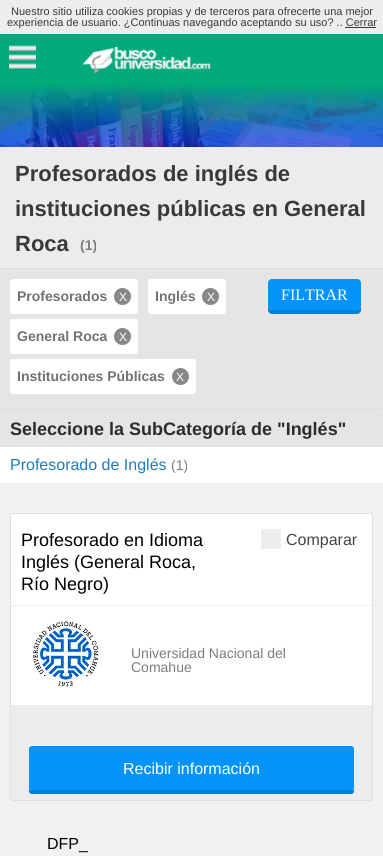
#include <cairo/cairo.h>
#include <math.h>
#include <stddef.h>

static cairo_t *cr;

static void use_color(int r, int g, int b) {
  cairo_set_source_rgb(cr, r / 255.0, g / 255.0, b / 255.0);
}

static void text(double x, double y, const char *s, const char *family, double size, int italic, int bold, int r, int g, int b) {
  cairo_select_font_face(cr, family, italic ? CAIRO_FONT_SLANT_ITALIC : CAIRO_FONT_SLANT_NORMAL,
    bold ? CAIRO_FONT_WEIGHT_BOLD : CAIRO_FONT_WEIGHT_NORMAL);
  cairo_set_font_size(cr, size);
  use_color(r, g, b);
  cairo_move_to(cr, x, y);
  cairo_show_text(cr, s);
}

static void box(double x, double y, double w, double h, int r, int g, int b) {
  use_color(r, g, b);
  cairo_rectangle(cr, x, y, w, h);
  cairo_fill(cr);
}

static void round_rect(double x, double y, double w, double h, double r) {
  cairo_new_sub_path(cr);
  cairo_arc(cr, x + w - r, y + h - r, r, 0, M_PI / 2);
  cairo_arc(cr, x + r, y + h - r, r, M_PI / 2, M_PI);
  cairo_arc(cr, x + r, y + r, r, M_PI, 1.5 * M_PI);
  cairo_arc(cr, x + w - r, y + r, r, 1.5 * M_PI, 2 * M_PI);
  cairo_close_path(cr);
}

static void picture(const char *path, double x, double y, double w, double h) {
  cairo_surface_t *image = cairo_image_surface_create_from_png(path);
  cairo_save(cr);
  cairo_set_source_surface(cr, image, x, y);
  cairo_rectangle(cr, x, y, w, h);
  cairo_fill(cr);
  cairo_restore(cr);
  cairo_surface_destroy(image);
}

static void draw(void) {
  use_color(236, 236, 236);
  cairo_paint(cr);
  box(0, 0, 383, 34, 237, 236, 239);
  box(345, 27, 31, 1, 57, 57, 57);
  box(0, 34, 383, 50, 1, 169, 123);
  picture("img_01.png", 9, 45, 38, 24);
  picture("img_02.png", 82, 47, 129, 27);
  picture("img_03.png", 0, 84, 383, 63);
  box(0, 268, 383, 1, 221, 221, 221);
  box(0, 269, 383, 140, 229, 229, 229);
  box(0, 409, 383, 1, 221, 221, 221);
  use_color(255, 255, 255);
  round_rect(10, 279, 128, 35, 3);
  cairo_fill(cr);
  use_color(135, 135, 135);
  cairo_arc(cr, 122.5, 296.5, 8.5, 0, 2 * M_PI);
  cairo_fill(cr);
  use_color(255, 255, 255);
  round_rect(148, 279, 78, 35, 3);
  cairo_fill(cr);
  use_color(135, 135, 135);
  cairo_arc(cr, 210.5, 296.5, 8.5, 0, 2 * M_PI);
  cairo_fill(cr);
  use_color(255, 255, 255);
  round_rect(10, 319, 128, 35, 3);
  cairo_fill(cr);
  use_color(135, 135, 135);
  cairo_arc(cr, 122.5, 336.5, 8.5, 0, 2 * M_PI);
  cairo_fill(cr);
  use_color(255, 255, 255);
  round_rect(10, 359, 186, 35, 3);
  cairo_fill(cr);
  use_color(135, 135, 135);
  cairo_arc(cr, 180.5, 376.5, 8.5, 0, 2 * M_PI);
  cairo_fill(cr);
  use_color(2, 128, 218);
  cairo_new_path(cr);
  cairo_move_to(cr, 268, 306);
  cairo_line_to(cr, 268, 310);
  cairo_curve_to(cr, 268, 312, 270, 314, 272, 314);
  cairo_line_to(cr, 357, 314);
  cairo_curve_to(cr, 359, 314, 361, 312, 361, 310);
  cairo_line_to(cr, 361, 306);
  cairo_curve_to(cr, 361, 308, 359, 310, 357, 310);
  cairo_line_to(cr, 272, 310);
  cairo_curve_to(cr, 270, 310, 268, 308, 268, 306);
  cairo_close_path(cr);
  cairo_fill(cr);
  use_color(3, 147, 250);
  round_rect(268, 279, 93, 31, 4);
  cairo_fill(cr);
  box(0, 410, 383, 446, 241, 241, 241);
  use_color(229, 229, 229);
  round_rect(0, 410, 383, 73, 3);
  cairo_fill(cr);
  box(0, 447, 383, 36, 255, 255, 255);
  box(0, 446, 383, 1, 221, 221, 221);
  use_color(255, 255, 255);
  round_rect(10.5, 513.5, 362, 287, 2.5);
  cairo_fill_preserve(cr);
  use_color(223, 223, 223);
  cairo_set_line_width(cr, 1);
  cairo_stroke(cr);
  cairo_new_path(cr);
  cairo_move_to(cr, 11, 605.5);
  cairo_line_to(cr, 372, 605.5);
  use_color(221, 221, 221);
  cairo_set_dash(cr, (double[]){1, 1}, 2, 0);
  cairo_stroke(cr);
  box(261, 529, 20, 20, 238, 238, 238);
  picture("img_04.png", 21, 616, 90, 76);
  use_color(236, 236, 236);
  cairo_new_path(cr);
  cairo_move_to(cr, 11, 705);
  cairo_line_to(cr, 372, 705);
  cairo_line_to(cr, 372, 798);
  cairo_curve_to(cr, 372, 799, 371, 800, 370, 800);
  cairo_line_to(cr, 13, 800);
  cairo_curve_to(cr, 12, 800, 11, 799, 11, 798);
  cairo_close_path(cr);
  cairo_fill(cr);
  use_color(2, 128, 218);
  cairo_new_path(cr);
  cairo_move_to(cr, 29, 787);
  cairo_curve_to(cr, 29, 789, 28, 794, 32, 794);
  cairo_line_to(cr, 351, 794);
  cairo_curve_to(cr, 355, 794, 354, 789, 354, 787);
  cairo_curve_to(cr, 354, 789, 353, 790, 351, 790);
  cairo_line_to(cr, 32, 790);
  cairo_curve_to(cr, 30, 790, 29, 789, 29, 787);
  cairo_close_path(cr);
  cairo_fill(cr);
  use_color(3, 147, 250);
  round_rect(29, 746, 325, 44, 3);
  cairo_fill(cr);
  text(11, 15, "Nuestro sitio utiliza cookies propias y de terceros para ofrecerte una mejor", "Liberation Sans", 11, 0, 0, 57, 57, 57);
  text(7, 26, "experiencia de usuario. ¿Continuas navegando aceptando su uso? .. Cerrar", "Liberation Sans", 11, 0, 0, 57, 57, 57);
  text(15, 181, "Profesorados de inglés de", "Liberation Sans", 22, 0, 1, 57, 57, 57);
  text(15, 216, "instituciones públicas en General", "Liberation Sans", 22, 0, 1, 57, 57, 57);
  text(15, 251, "Roca", "Liberation Sans", 22, 0, 1, 57, 57, 57);
  text(80, 250, "(1)", "Liberation Sans", 14, 0, 1, 124, 124, 124);
  text(17, 301, "Profesorados", "Liberation Sans", 14, 0, 1, 115, 114, 114);
  text(119, 301, "X", "Liberation Sans", 12, 0, 0, 255, 255, 255);
  text(155, 301, "Inglés", "Liberation Sans", 14, 0, 1, 115, 114, 114);
  text(207, 301, "X", "Liberation Sans", 12, 0, 0, 255, 255, 255);
  text(17, 341, "General Roca", "Liberation Sans", 14, 0, 1, 115, 114, 114);
  text(119, 341, "X", "Liberation Sans", 12, 0, 0, 255, 255, 255);
  text(17, 381, "Instituciones Públicas", "Liberation Sans", 14, 0, 1, 115, 114, 114);
  text(176, 381, "X", "Liberation Sans", 12, 0, 0, 255, 255, 255);
  text(281, 300, "FILTRAR", "Liberation Serif", 16, 0, 0, 255, 255, 255);
  text(10, 435, "Seleccione la SubCategoría de \"Inglés\"", "Liberation Sans", 18, 0, 1, 44, 44, 44);
  text(10, 470, "Profesorado de Inglés", "Liberation Sans", 16, 0, 0, 31, 125, 186);
  text(171, 470, "(1)", "Liberation Sans", 14, 0, 0, 124, 124, 124);
  text(21, 546, "Profesorado en Idioma", "Liberation Sans", 18, 0, 0, 0, 0, 0);
  text(21, 568, "Inglés (General Roca,", "Liberation Sans", 18, 0, 0, 0, 0, 0);
  text(21, 590, "Río Negro)", "Liberation Sans", 18, 0, 0, 0, 0, 0);
  text(286, 545, "Comparar", "Liberation Sans", 16, 0, 0, 69, 69, 69);
  text(131, 658, "Universidad Nacional del", "Liberation Sans", 14, 0, 0, 124, 124, 124);
  text(131, 672, "Comahue", "Liberation Sans", 14, 0, 0, 124, 124, 124);
  text(123, 774, "Recibir información", "Liberation Sans", 16, 0, 0, 255, 255, 255);
  text(47, 849, "DFP_", "Liberation Sans", 16, 0, 0, 0, 0, 0);
}

int main(void) {
  cairo_surface_t *surface = cairo_image_surface_create(CAIRO_FORMAT_RGB24, 383, 856);
  cr = cairo_create(surface);
  cairo_font_options_t *options = cairo_font_options_create();
  cairo_font_options_set_hint_metrics(options, CAIRO_HINT_METRICS_OFF);
  cairo_font_options_set_hint_style(options, CAIRO_HINT_STYLE_NONE);
  cairo_set_font_options(cr, options);
  cairo_set_miter_limit(cr, 4);
  draw();
  cairo_surface_write_to_png(surface, "out.png");
  cairo_font_options_destroy(options);
  cairo_destroy(cr);
  cairo_surface_destroy(surface);
  return 0;
}
